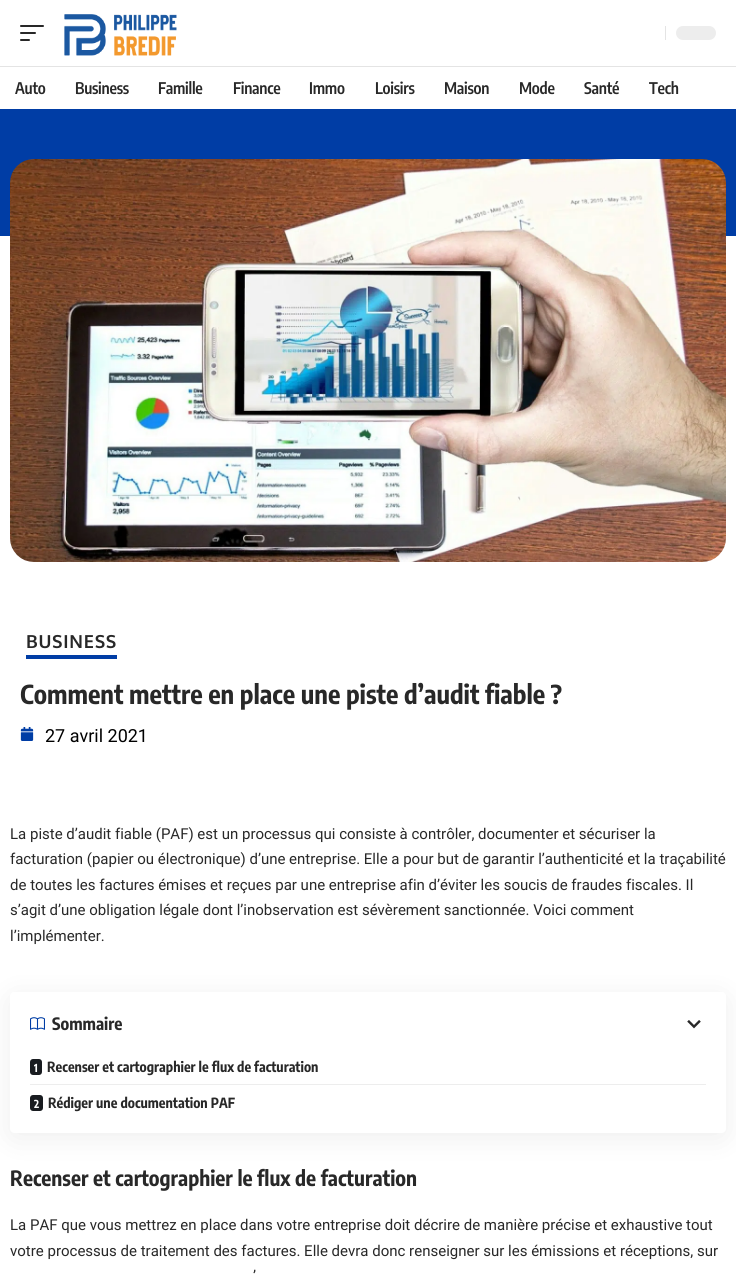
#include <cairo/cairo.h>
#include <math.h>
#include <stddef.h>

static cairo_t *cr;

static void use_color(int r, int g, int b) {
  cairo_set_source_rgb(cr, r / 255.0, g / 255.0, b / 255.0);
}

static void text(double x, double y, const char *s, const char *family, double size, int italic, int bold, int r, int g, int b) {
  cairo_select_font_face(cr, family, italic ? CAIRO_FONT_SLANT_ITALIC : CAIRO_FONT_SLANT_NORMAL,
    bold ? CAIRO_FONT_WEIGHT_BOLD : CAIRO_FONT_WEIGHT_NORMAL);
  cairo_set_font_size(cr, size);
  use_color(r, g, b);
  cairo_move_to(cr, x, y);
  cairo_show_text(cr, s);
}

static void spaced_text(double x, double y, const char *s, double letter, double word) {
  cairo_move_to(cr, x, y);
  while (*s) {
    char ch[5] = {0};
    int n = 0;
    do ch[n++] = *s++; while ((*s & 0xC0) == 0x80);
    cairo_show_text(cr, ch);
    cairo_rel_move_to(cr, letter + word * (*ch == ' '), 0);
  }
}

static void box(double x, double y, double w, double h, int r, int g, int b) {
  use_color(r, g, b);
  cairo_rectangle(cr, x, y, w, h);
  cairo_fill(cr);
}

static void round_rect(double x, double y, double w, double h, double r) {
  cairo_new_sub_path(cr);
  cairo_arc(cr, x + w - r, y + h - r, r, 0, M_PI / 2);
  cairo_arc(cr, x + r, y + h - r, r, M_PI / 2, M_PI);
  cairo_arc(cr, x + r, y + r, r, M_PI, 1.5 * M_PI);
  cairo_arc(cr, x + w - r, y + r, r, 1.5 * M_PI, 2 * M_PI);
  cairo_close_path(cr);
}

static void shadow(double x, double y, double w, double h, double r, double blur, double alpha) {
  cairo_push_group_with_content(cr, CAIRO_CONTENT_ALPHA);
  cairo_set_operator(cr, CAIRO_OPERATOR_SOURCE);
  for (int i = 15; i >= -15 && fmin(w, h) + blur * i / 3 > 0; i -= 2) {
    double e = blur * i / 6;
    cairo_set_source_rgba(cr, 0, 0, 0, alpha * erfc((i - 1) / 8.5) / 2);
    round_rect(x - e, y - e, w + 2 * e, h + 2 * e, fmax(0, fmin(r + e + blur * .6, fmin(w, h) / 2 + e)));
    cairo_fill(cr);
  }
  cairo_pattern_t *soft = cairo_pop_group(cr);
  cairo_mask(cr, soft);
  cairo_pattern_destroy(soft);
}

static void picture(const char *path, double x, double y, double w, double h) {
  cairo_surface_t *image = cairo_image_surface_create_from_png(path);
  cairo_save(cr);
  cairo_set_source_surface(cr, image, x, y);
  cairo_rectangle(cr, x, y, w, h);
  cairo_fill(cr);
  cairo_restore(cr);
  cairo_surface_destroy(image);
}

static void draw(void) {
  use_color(255, 255, 255);
  cairo_paint(cr);
  use_color(40, 40, 40);
  round_rect(20, 25, 24, 2, 1);
  cairo_fill(cr);
  round_rect(20, 32, 16, 2, 1);
  cairo_fill(cr);
  round_rect(20, 39, 10, 2, 1);
  cairo_fill(cr);
  picture("img_01.png", 64, 14, 113, 42);
  box(665, 26, 1, 14, 228, 228, 228);
  use_color(237, 237, 237);
  round_rect(676, 26, 40, 14, 7);
  cairo_fill(cr);
  box(0, 66, 736, 1, 228, 228, 228);
  box(0, 109, 736, 127, 0, 61, 165);
  picture("img_02.png", 10, 159, 716, 403);
  box(26, 655, 91, 4, 0, 61, 165);
  picture("img_03.png", 20, 727, 14, 14);
  cairo_save(cr);
  cairo_set_fill_rule(cr, CAIRO_FILL_RULE_EVEN_ODD);
  cairo_new_path(cr);
  cairo_move_to(cr, 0, 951);
  cairo_line_to(cr, 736, 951);
  cairo_line_to(cr, 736, 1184);
  cairo_line_to(cr, 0, 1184);
  cairo_close_path(cr);
  cairo_move_to(cr, 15, 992);
  cairo_line_to(cr, 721, 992);
  cairo_curve_to(cr, 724, 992, 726, 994, 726, 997);
  cairo_line_to(cr, 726, 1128);
  cairo_curve_to(cr, 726, 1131, 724, 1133, 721, 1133);
  cairo_line_to(cr, 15, 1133);
  cairo_curve_to(cr, 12, 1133, 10, 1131, 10, 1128);
  cairo_line_to(cr, 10, 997);
  cairo_curve_to(cr, 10, 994, 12, 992, 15, 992);
  cairo_close_path(cr);
  cairo_clip(cr);
  use_color(0, 0, 0);
  shadow(10, 997, 716, 141, 5, 15, 0.07);
  cairo_restore(cr);
  picture("img_04.png", 30, 1017, 15, 13);
  picture("img_05.png", 687, 1020, 14, 9);
  use_color(25, 28, 32);
  round_rect(30, 1059, 12, 16, 3);
  cairo_fill(cr);
  box(30, 1084, 676, 1, 237, 237, 237);
  use_color(25, 28, 32);
  round_rect(30, 1095, 13, 16, 3);
  cairo_fill(cr);
  cairo_select_font_face(cr, "Encode Sans Condensed SemiBold", CAIRO_FONT_SLANT_NORMAL, CAIRO_FONT_WEIGHT_NORMAL);
  cairo_set_font_size(cr, 16);
  use_color(40, 40, 40);
  spaced_text(15, 94, "Auto", -0.25, 0);
  spaced_text(75, 94, "Business", -0.25, 0);
  spaced_text(158, 94, "Famille", -0.25, 0);
  spaced_text(233, 94, "Finance", -0.25, 0);
  spaced_text(309, 94, "Immo", -0.25, 0);
  spaced_text(375, 94, "Loisirs", -0.25, 0);
  spaced_text(444, 94, "Maison", -0.25, 0);
  spaced_text(519, 94, "Mode", -0.25, 0);
  spaced_text(584, 94, "Santé", -0.25, 0);
  spaced_text(649, 94, "Tech", -0.25, 0);
  cairo_select_font_face(cr, "Oxygen", CAIRO_FONT_SLANT_NORMAL, CAIRO_FONT_WEIGHT_BOLD);
  cairo_set_font_size(cr, 18);
  spaced_text(26, 648, "BUSINESS", 0.75, 0);
  text(20, 704, "Comment mettre en place une piste d’audit fiable ?", "Encode Sans Condensed", 26, 0, 1, 40, 40, 40);
  text(45, 742, "27 avril 2021", "Roboto", 18, 0, 0, 0, 0, 0);
  text(10, 839, "La piste d’audit fiable (PAF) est un processus qui consiste à contrôler, documenter et sécuriser la", "Roboto", 15, 0, 0, 40, 40, 40);
  text(10, 864, "facturation (papier ou électronique) d’une entreprise. Elle a pour but de garantir l’authenticité et la traçabilité", "Roboto", 15, 0, 0, 40, 40, 40);
  text(10, 890, "de toutes les factures émises et reçues par une entreprise afin d’éviter les soucis de fraudes fiscales. Il", "Roboto", 15, 0, 0, 40, 40, 40);
  text(10, 915, "s’agit d’une obligation légale dont l’inobservation est sévèrement sanctionnée. Voici comment", "Roboto", 15, 0, 0, 40, 40, 40);
  text(10, 941, "l’implémenter.", "Roboto", 15, 0, 0, 40, 40, 40);
  text(52, 1030, "Sommaire", "Encode Sans Condensed", 17, 0, 1, 40, 40, 40);
  text(34, 1072, "1", "Encode Sans Condensed", 11, 0, 1, 255, 255, 255);
  text(47, 1072, "Recenser et cartographier le flux de facturation", "Encode Sans Condensed", 14, 0, 1, 40, 40, 40);
  text(34, 1108, "2", "Encode Sans Condensed", 11, 0, 1, 255, 255, 255);
  text(48, 1108, "Rédiger une documentation PAF", "Encode Sans Condensed", 14, 0, 1, 40, 40, 40);
  text(10, 1186, "Recenser et cartographier le flux de facturation", "Encode Sans Condensed", 21, 0, 1, 40, 40, 40);
  text(10, 1230, "La PAF que vous mettrez en place dans votre entreprise doit décrire de manière précise et exhaustive tout", "Roboto", 15, 0, 0, 40, 40, 40);
  text(10, 1256, "votre processus de traitement des factures. Elle devra donc renseigner sur les émissions et réceptions, sur", "Roboto", 15, 0, 0, 40, 40, 40);
  text(253, 1281, "’", "Roboto", 15, 0, 0, 40, 40, 40);
}

int main(void) {
  cairo_surface_t *surface = cairo_image_surface_create(CAIRO_FORMAT_RGB24, 736, 1278);
  cr = cairo_create(surface);
  cairo_font_options_t *options = cairo_font_options_create();
  cairo_font_options_set_hint_metrics(options, CAIRO_HINT_METRICS_OFF);
  cairo_font_options_set_hint_style(options, CAIRO_HINT_STYLE_NONE);
  cairo_set_font_options(cr, options);
  cairo_set_miter_limit(cr, 4);
  draw();
  cairo_surface_write_to_png(surface, "out.png");
  cairo_font_options_destroy(options);
  cairo_destroy(cr);
  cairo_surface_destroy(surface);
  return 0;
}
